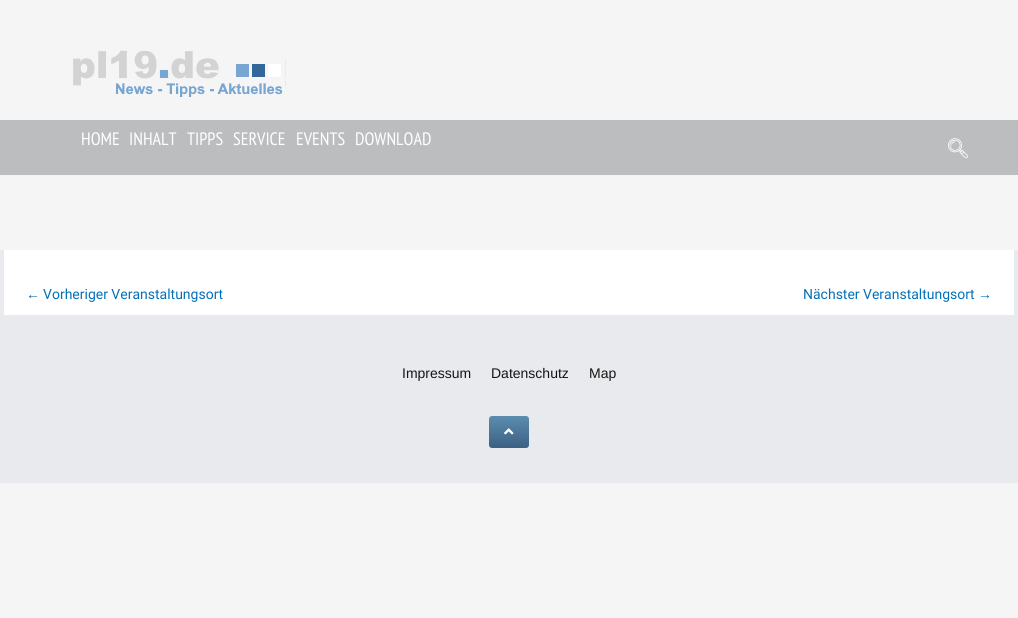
#include <cairo/cairo.h>
#include <math.h>
#include <stddef.h>

static cairo_t *cr;

static void use_color(int r, int g, int b) {
  cairo_set_source_rgb(cr, r / 255.0, g / 255.0, b / 255.0);
}

static void text(double x, double y, const char *s, const char *family, double size, int italic, int bold, int r, int g, int b) {
  cairo_select_font_face(cr, family, italic ? CAIRO_FONT_SLANT_ITALIC : CAIRO_FONT_SLANT_NORMAL,
    bold ? CAIRO_FONT_WEIGHT_BOLD : CAIRO_FONT_WEIGHT_NORMAL);
  cairo_set_font_size(cr, size);
  use_color(r, g, b);
  cairo_move_to(cr, x, y);
  cairo_show_text(cr, s);
}

static void box(double x, double y, double w, double h, int r, int g, int b) {
  use_color(r, g, b);
  cairo_rectangle(cr, x, y, w, h);
  cairo_fill(cr);
}

static void round_rect(double x, double y, double w, double h, double r) {
  cairo_new_sub_path(cr);
  cairo_arc(cr, x + w - r, y + h - r, r, 0, M_PI / 2);
  cairo_arc(cr, x + r, y + h - r, r, M_PI / 2, M_PI);
  cairo_arc(cr, x + r, y + r, r, M_PI, 1.5 * M_PI);
  cairo_arc(cr, x + w - r, y + r, r, 1.5 * M_PI, 2 * M_PI);
  cairo_close_path(cr);
}

static void picture(const char *path, double x, double y, double w, double h) {
  cairo_surface_t *image = cairo_image_surface_create_from_png(path);
  cairo_save(cr);
  cairo_set_source_surface(cr, image, x, y);
  cairo_rectangle(cr, x, y, w, h);
  cairo_fill(cr);
  cairo_restore(cr);
  cairo_surface_destroy(image);
}

static void draw(void) {
  cairo_pattern_t *gradient;
  use_color(245, 245, 245);
  cairo_paint(cr);
  picture("img_01.png", 73, 50, 213, 47);
  box(0, 120, 1018, 55, 188, 189, 190);
  picture("img_02.png", 948, 138, 20, 21);
  box(0, 250, 1018, 233, 233, 234, 237);
  box(4, 250, 1010, 65, 255, 255, 255);
  gradient = cairo_pattern_create_linear(509, 416, 509, 448);
  cairo_pattern_add_color_stop_rgba(gradient, 0, 0.357, 0.557, 0.686, 1);
  cairo_pattern_add_color_stop_rgba(gradient, 1, 0.235, 0.376, 0.514, 1);
  cairo_set_source(cr, gradient);
  cairo_pattern_destroy(gradient);
  round_rect(489, 416, 40, 32, 3);
  cairo_fill(cr);
  picture("img_03.png", 504, 428, 10, 7);
  text(81, 145, "HOME", "PT Sans Narrow", 18, 0, 0, 255, 255, 255);
  text(129, 145, "INHALT", "PT Sans Narrow", 18, 0, 0, 255, 255, 255);
  text(187, 145, "TIPPS", "PT Sans Narrow", 18, 0, 0, 255, 255, 255);
  text(233, 145, "SERVICE", "PT Sans Narrow", 18, 0, 0, 255, 255, 255);
  text(296, 145, "EVENTS", "PT Sans Narrow", 18, 0, 0, 255, 255, 255);
  text(355, 145, "DOWNLOAD", "PT Sans Narrow", 18, 0, 0, 255, 255, 255);
  text(26, 299, "←", "Liberation Sans", 14, 0, 0, 1, 112, 185);
  text(43, 299, "Vorheriger Veranstaltungsort", "Roboto", 14, 0, 0, 1, 112, 185);
  text(803, 299, "Nächster Veranstaltungsort", "Roboto", 14, 0, 0, 1, 112, 185);
  text(978, 299, "→", "Liberation Sans", 14, 0, 0, 1, 112, 185);
  text(402, 378, "Impressum", "Liberation Sans", 14, 0, 0, 21, 21, 21);
  text(491, 378, "Datenschutz", "Liberation Sans", 14, 0, 0, 21, 21, 21);
  text(589, 378, "Map", "Liberation Sans", 14, 0, 0, 21, 21, 21);
}

int main(void) {
  cairo_surface_t *surface = cairo_image_surface_create(CAIRO_FORMAT_RGB24, 1018, 618);
  cr = cairo_create(surface);
  cairo_font_options_t *options = cairo_font_options_create();
  cairo_font_options_set_hint_metrics(options, CAIRO_HINT_METRICS_OFF);
  cairo_font_options_set_hint_style(options, CAIRO_HINT_STYLE_NONE);
  cairo_set_font_options(cr, options);
  cairo_set_miter_limit(cr, 4);
  draw();
  cairo_surface_write_to_png(surface, "out.png");
  cairo_font_options_destroy(options);
  cairo_destroy(cr);
  cairo_surface_destroy(surface);
  return 0;
}
